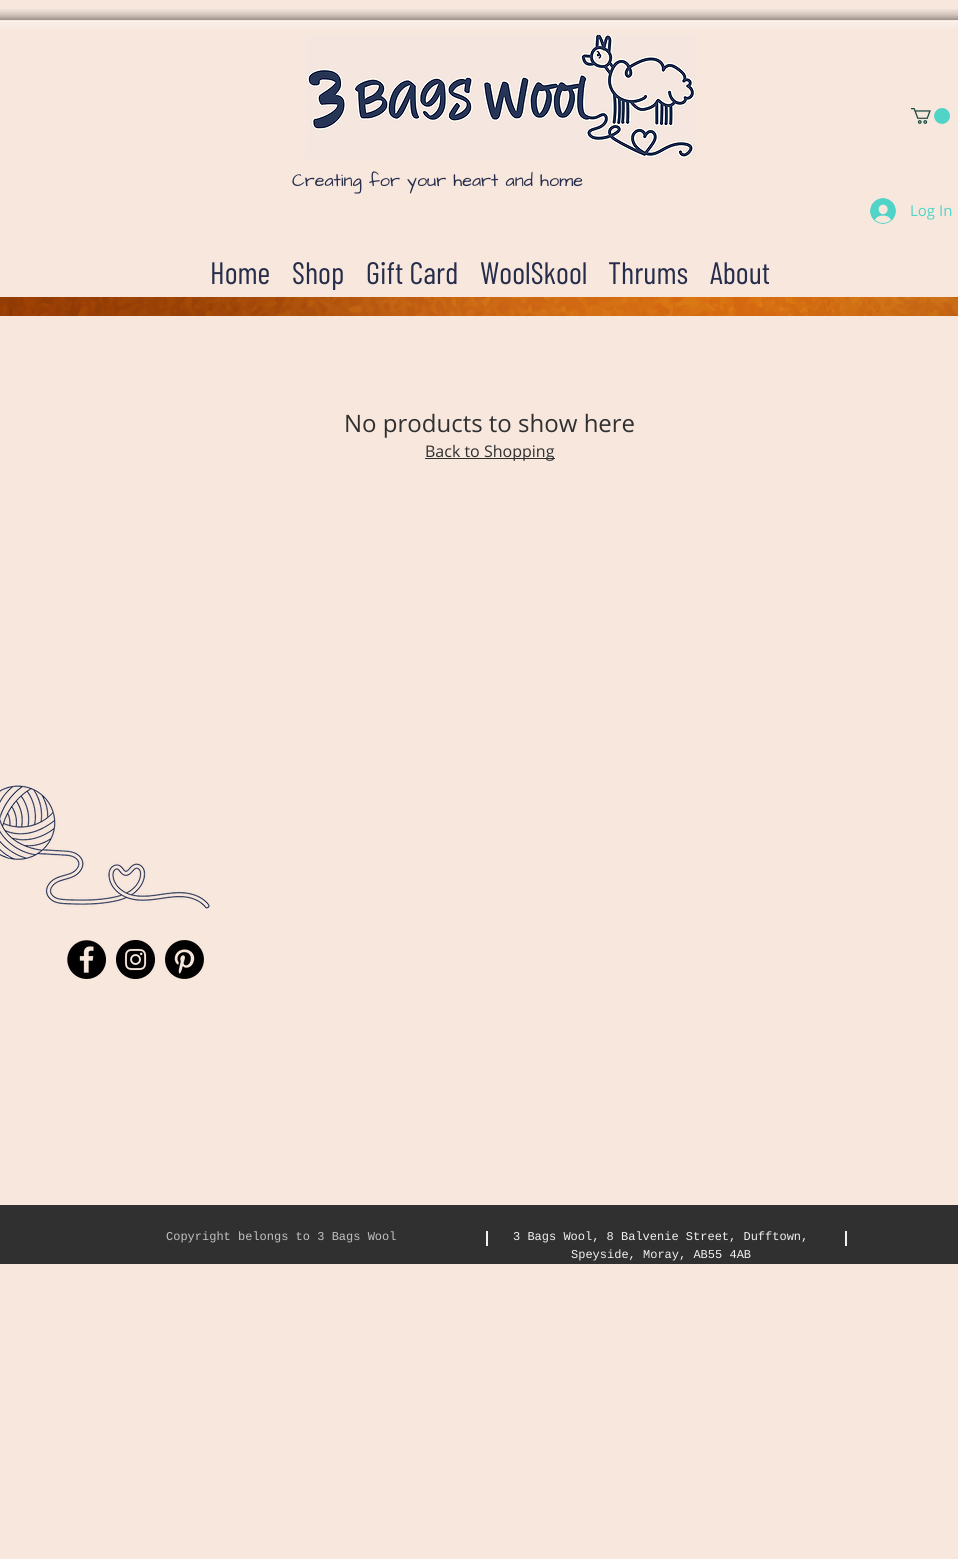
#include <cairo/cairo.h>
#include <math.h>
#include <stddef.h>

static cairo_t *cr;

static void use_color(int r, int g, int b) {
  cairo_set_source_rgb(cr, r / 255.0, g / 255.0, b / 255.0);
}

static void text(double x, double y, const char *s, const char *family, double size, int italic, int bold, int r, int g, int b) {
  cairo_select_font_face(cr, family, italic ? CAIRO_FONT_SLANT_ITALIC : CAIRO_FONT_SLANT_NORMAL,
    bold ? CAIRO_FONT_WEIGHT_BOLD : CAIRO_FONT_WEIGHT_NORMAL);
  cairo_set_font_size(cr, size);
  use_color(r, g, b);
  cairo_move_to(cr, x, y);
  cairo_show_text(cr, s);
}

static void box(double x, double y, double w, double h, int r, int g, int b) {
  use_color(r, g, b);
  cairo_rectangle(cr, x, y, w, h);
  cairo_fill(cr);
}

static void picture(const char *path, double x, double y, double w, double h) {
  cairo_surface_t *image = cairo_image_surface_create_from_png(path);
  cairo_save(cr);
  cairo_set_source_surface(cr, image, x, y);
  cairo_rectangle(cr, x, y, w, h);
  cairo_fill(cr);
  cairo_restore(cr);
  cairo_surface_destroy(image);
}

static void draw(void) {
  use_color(247, 231, 221);
  cairo_paint(cr);
  picture("img_01.png", 0, 9, 958, 19);
  picture("img_02.png", 306, 35, 390, 124);
  picture("img_03.png", 911, 108, 39, 16);
  picture("img_04.png", 870, 198, 26, 26);
  picture("img_05.png", 0, 297, 958, 19);
  box(425, 458, 130, 1, 48, 48, 48);
  picture("img_06.png", 0, 785, 210, 124);
  picture("img_07.png", 67, 940, 39, 39);
  picture("img_08.png", 116, 940, 39, 39);
  picture("img_09.png", 165, 940, 39, 39);
  box(0, 1205, 958, 59, 48, 48, 48);
  box(486, 1231, 2, 15, 241, 241, 241);
  box(845, 1231, 2, 15, 241, 241, 241);
  text(292, 186, "Creating for your heart and home", "Architects Daughter", 18, 0, 0, 38, 45, 75);
  text(910, 216, "Log In", "Open Sans", 15, 0, 0, 79, 212, 199);
  text(210, 284, "Home", "Barlow Condensed", 31, 0, 0, 38, 45, 75);
  text(292, 284, "Shop", "Barlow Condensed", 31, 0, 0, 38, 45, 75);
  text(366, 284, "Gift Card", "Barlow Condensed", 31, 0, 0, 38, 45, 75);
  text(480, 284, "WoolSkool", "Barlow Condensed", 31, 0, 0, 38, 45, 75);
  text(608, 284, "Thrums", "Barlow Condensed", 31, 0, 0, 38, 45, 75);
  text(710, 284, "About", "Barlow Condensed", 31, 0, 0, 38, 45, 75);
  text(344, 432, "No products to show here", "Open Sans", 24, 0, 0, 48, 48, 48);
  text(425, 457, "Back to Shopping", "Open Sans", 16, 0, 0, 48, 48, 48);
  text(166, 1240, "Copyright belongs to 3 Bags Wool", "Liberation Mono", 12, 0, 0, 193, 193, 193);
  text(513, 1240, "3 Bags Wool, 8 Balvenie Street, Dufftown,", "Liberation Mono", 12, 0, 0, 241, 241, 241);
  text(571, 1258, "Speyside, Moray, AB55 4AB", "Liberation Mono", 12, 0, 0, 241, 241, 241);
}

int main(void) {
  cairo_surface_t *surface = cairo_image_surface_create(CAIRO_FORMAT_RGB24, 958, 1559);
  cr = cairo_create(surface);
  cairo_font_options_t *options = cairo_font_options_create();
  cairo_font_options_set_hint_metrics(options, CAIRO_HINT_METRICS_OFF);
  cairo_font_options_set_hint_style(options, CAIRO_HINT_STYLE_NONE);
  cairo_set_font_options(cr, options);
  cairo_set_miter_limit(cr, 4);
  draw();
  cairo_surface_write_to_png(surface, "out.png");
  cairo_font_options_destroy(options);
  cairo_destroy(cr);
  cairo_surface_destroy(surface);
  return 0;
}
